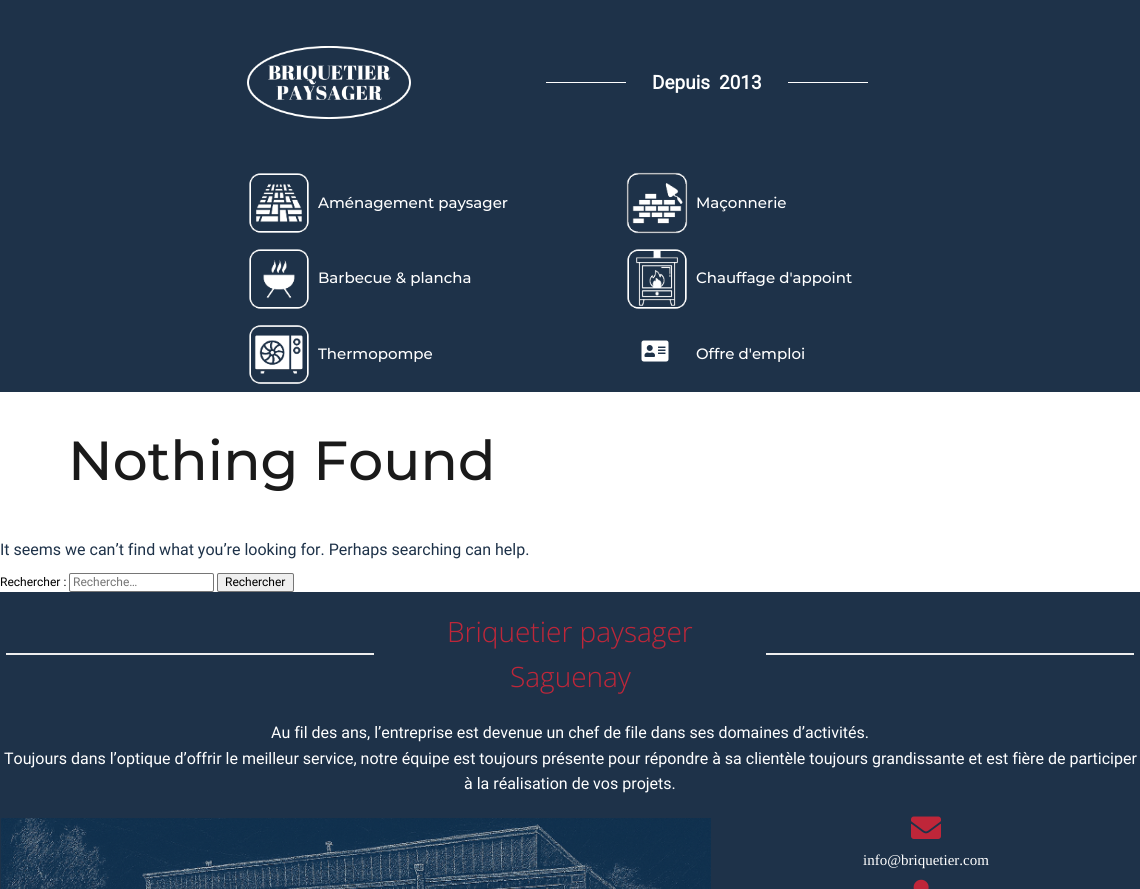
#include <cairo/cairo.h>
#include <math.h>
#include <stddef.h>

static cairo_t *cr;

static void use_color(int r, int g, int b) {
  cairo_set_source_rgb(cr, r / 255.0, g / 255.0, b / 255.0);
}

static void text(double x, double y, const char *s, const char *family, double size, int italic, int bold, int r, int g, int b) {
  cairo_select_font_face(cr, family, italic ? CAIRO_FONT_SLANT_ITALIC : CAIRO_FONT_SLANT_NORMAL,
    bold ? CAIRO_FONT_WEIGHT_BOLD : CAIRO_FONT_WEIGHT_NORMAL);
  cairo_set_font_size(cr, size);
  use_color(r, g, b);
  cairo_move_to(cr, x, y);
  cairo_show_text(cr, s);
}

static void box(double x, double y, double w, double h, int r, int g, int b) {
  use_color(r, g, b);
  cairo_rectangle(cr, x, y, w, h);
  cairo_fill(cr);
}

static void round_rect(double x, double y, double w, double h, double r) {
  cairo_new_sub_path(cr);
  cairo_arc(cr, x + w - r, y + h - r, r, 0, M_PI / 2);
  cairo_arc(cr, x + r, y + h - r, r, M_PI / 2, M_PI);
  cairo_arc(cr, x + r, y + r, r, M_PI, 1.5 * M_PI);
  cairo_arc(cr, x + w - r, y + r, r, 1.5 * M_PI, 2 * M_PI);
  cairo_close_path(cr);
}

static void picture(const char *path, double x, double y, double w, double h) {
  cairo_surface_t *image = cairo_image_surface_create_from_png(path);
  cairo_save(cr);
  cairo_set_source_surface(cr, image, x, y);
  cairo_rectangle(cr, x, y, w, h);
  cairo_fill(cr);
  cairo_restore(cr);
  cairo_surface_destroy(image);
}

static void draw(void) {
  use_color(255, 255, 255);
  cairo_paint(cr);
  box(0, 0, 1140, 392, 30, 50, 73);
  picture("img_01.png", 247, 46, 164, 73);
  box(546, 82, 80, 1, 255, 255, 255);
  box(788, 82, 80, 1, 255, 255, 255);
  picture("img_02.png", 249, 173, 60, 60);
  picture("img_03.png", 626, 172, 62, 62);
  picture("img_04.png", 249, 249, 60, 60);
  picture("img_05.png", 627, 249, 60, 60);
  picture("img_06.png", 249, 325, 60, 59);
  picture("img_07.png", 641, 340, 28, 22);
  round_rect(69.5, 573.5, 144, 18, 1.5);
  use_color(118, 118, 118);
  cairo_set_line_width(cr, 1);
  cairo_stroke(cr);
  use_color(239, 239, 239);
  round_rect(217.5, 573.5, 76, 18, 1.5);
  cairo_fill_preserve(cr);
  use_color(118, 118, 118);
  cairo_stroke(cr);
  box(0, 592, 1140, 297, 30, 50, 73);
  box(6, 653, 368, 2, 238, 238, 238);
  box(766, 653, 368, 2, 238, 238, 238);
  picture("img_08.png", 1, 818, 710, 71);
  picture("img_09.png", 911, 816, 30, 23);
  picture("img_10.png", 913, 879, 16, 10);
  text(652, 89, "Depuis", "Roboto", 19, 0, 1, 255, 255, 255);
  text(719, 89, "2013", "Roboto", 19, 0, 1, 255, 255, 255);
  text(318, 208, "Aménagement paysager", "Montserrat Medium", 15, 0, 0, 255, 255, 255);
  text(696, 208, "Maçonnerie", "Montserrat Medium", 15, 0, 0, 255, 255, 255);
  text(318, 283, "Barbecue & plancha", "Montserrat Medium", 15, 0, 0, 255, 255, 255);
  text(696, 283, "Chauffage d'appoint", "Montserrat Medium", 15, 0, 0, 255, 255, 255);
  text(318, 359, "Thermopompe", "Montserrat Medium", 15, 0, 0, 255, 255, 255);
  text(696, 359, "Offre d'emploi", "Montserrat Medium", 15, 0, 0, 255, 255, 255);
  text(68, 480, "Nothing Found", "Montserrat Medium", 55, 0, 0, 26, 26, 26);
  text(0, 555, "It seems we can’t find what you’re looking for. Perhaps searching can help.", "Roboto", 16, 0, 0, 30, 50, 73);
  text(0, 586, "Rechercher :", "Roboto", 12, 0, 0, 0, 0, 0);
  text(73, 586, "Recherche…", "Roboto", 12, 0, 0, 117, 117, 117);
  text(225, 586, "Rechercher", "Roboto", 12, 0, 0, 0, 0, 0);
  text(447, 642, "Briquetier paysager", "Open Sans Light", 28, 0, 0, 191, 38, 57);
  text(510, 687, "Saguenay", "Open Sans Light", 28, 0, 0, 191, 38, 57);
  text(271, 738, "Au fil des ans, l’entreprise est devenue un chef de file dans ses domaines d’activités.", "Roboto", 16, 0, 0, 255, 255, 255);
  text(4, 764, "Toujours dans l’optique d’offrir le meilleur service, notre équipe est toujours présente pour répondre à sa clientèle toujours grandissante et est fière de participer", "Roboto", 16, 0, 0, 255, 255, 255);
  text(464, 789, "à la réalisation de vos projets.", "Roboto", 16, 0, 0, 255, 255, 255);
  text(863, 865, "info@briquetier.com", "Liberation Serif", 15, 0, 0, 255, 255, 255);
}

int main(void) {
  cairo_surface_t *surface = cairo_image_surface_create(CAIRO_FORMAT_RGB24, 1140, 889);
  cr = cairo_create(surface);
  cairo_font_options_t *options = cairo_font_options_create();
  cairo_font_options_set_hint_metrics(options, CAIRO_HINT_METRICS_OFF);
  cairo_font_options_set_hint_style(options, CAIRO_HINT_STYLE_NONE);
  cairo_set_font_options(cr, options);
  cairo_set_miter_limit(cr, 4);
  draw();
  cairo_surface_write_to_png(surface, "out.png");
  cairo_font_options_destroy(options);
  cairo_destroy(cr);
  cairo_surface_destroy(surface);
  return 0;
}
